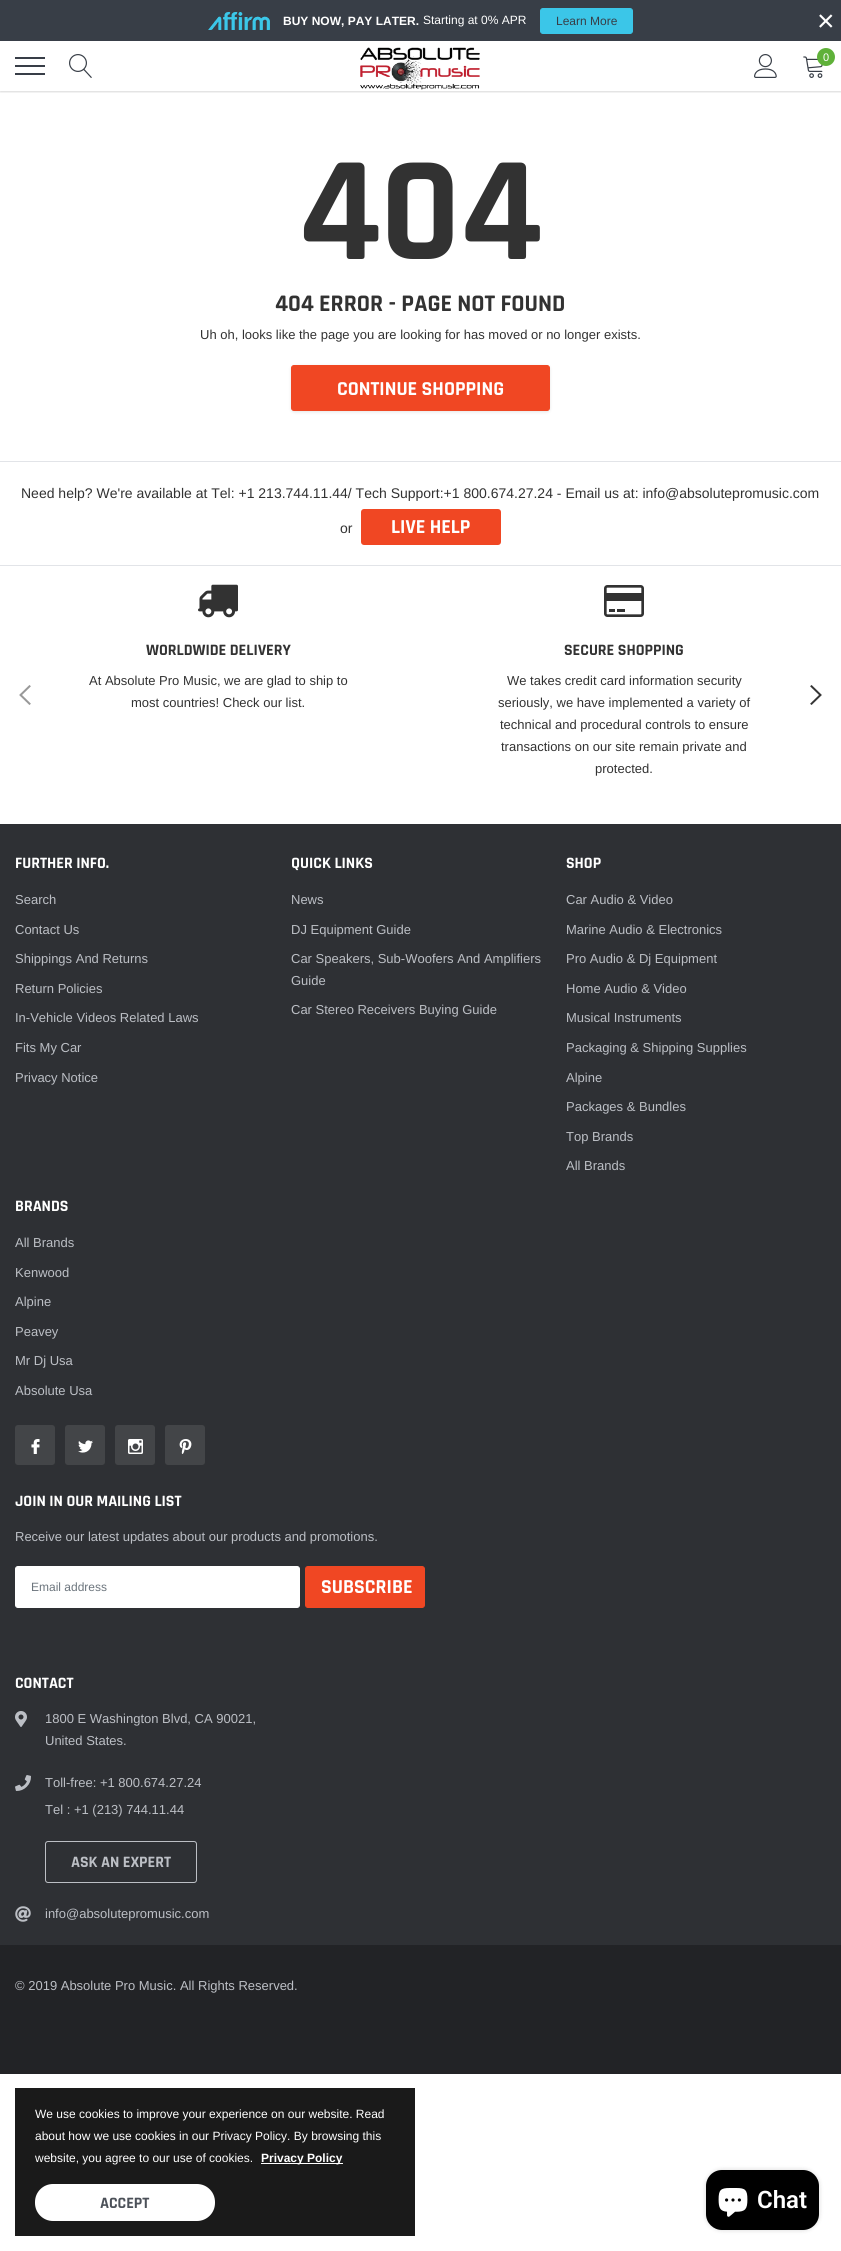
#include <cairo/cairo.h>
#include <math.h>
#include <stddef.h>

static cairo_t *cr;

static void use_color(int r, int g, int b) {
  cairo_set_source_rgb(cr, r / 255.0, g / 255.0, b / 255.0);
}

static void text(double x, double y, const char *s, const char *family, double size, int italic, int bold, int r, int g, int b) {
  cairo_select_font_face(cr, family, italic ? CAIRO_FONT_SLANT_ITALIC : CAIRO_FONT_SLANT_NORMAL,
    bold ? CAIRO_FONT_WEIGHT_BOLD : CAIRO_FONT_WEIGHT_NORMAL);
  cairo_set_font_size(cr, size);
  use_color(r, g, b);
  cairo_move_to(cr, x, y);
  cairo_show_text(cr, s);
}

static void box(double x, double y, double w, double h, int r, int g, int b) {
  use_color(r, g, b);
  cairo_rectangle(cr, x, y, w, h);
  cairo_fill(cr);
}

static void round_rect(double x, double y, double w, double h, double r) {
  cairo_new_sub_path(cr);
  cairo_arc(cr, x + w - r, y + h - r, r, 0, M_PI / 2);
  cairo_arc(cr, x + r, y + h - r, r, M_PI / 2, M_PI);
  cairo_arc(cr, x + r, y + r, r, M_PI, 1.5 * M_PI);
  cairo_arc(cr, x + w - r, y + r, r, 1.5 * M_PI, 2 * M_PI);
  cairo_close_path(cr);
}

static void shadow(double x, double y, double w, double h, double r, double blur, double alpha) {
  cairo_push_group_with_content(cr, CAIRO_CONTENT_ALPHA);
  cairo_set_operator(cr, CAIRO_OPERATOR_SOURCE);
  for (int i = 15; i >= -15 && fmin(w, h) + blur * i / 3 > 0; i -= 2) {
    double e = blur * i / 6;
    cairo_set_source_rgba(cr, 0, 0, 0, alpha * erfc((i - 1) / 8.5) / 2);
    round_rect(x - e, y - e, w + 2 * e, h + 2 * e, fmax(0, fmin(r + e + blur * .6, fmin(w, h) / 2 + e)));
    cairo_fill(cr);
  }
  cairo_pattern_t *soft = cairo_pop_group(cr);
  cairo_mask(cr, soft);
  cairo_pattern_destroy(soft);
}

static void picture(const char *path, double x, double y, double w, double h) {
  cairo_surface_t *image = cairo_image_surface_create_from_png(path);
  cairo_save(cr);
  cairo_set_source_surface(cr, image, x, y);
  cairo_rectangle(cr, x, y, w, h);
  cairo_fill(cr);
  cairo_restore(cr);
  cairo_surface_destroy(image);
}

static void draw(void) {
  use_color(255, 255, 255);
  cairo_paint(cr);
  box(0, 0, 841, 41, 56, 62, 71);
  picture("img_01.png", 208, 12, 62, 18);
  use_color(59, 198, 232);
  round_rect(540.5, 8.5, 92, 25, 2.5);
  cairo_fill_preserve(cr);
  cairo_set_line_width(cr, 1);
  cairo_stroke(cr);
  cairo_save(cr);
  cairo_rectangle(cr, 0, 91, 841, 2);
  cairo_clip(cr);
  use_color(0, 0, 0);
  shadow(0, 42, 841, 50, 0, 1, 0.15);
  cairo_restore(cr);
  box(15, 65, 30, 2, 56, 62, 71);
  box(15, 57, 30, 2, 56, 62, 71);
  box(15, 73, 30, 2, 56, 62, 71);
  picture("img_02.png", 69, 54, 23, 24);
  picture("img_03.png", 360, 47, 120, 43);
  picture("img_04.png", 754, 54, 23, 24);
  picture("img_05.png", 803, 56, 20, 22);
  use_color(95, 177, 57);
  cairo_arc(cr, 826, 57, 9, 0, 2 * M_PI);
  cairo_fill(cr);
  use_color(0, 0, 0);
  shadow(291, 366, 259, 46, 3, 1.5, 0.1);
  use_color(240, 71, 35);
  round_rect(291.5, 365.5, 258, 45, 2.5);
  cairo_fill_preserve(cr);
  cairo_stroke(cr);
  box(0, 461, 841, 1, 226, 228, 232);
  use_color(240, 71, 35);
  round_rect(361, 509, 140, 36, 3);
  cairo_fill(cr);
  box(0, 565, 841, 1, 226, 228, 232);
  picture("img_06.png", 19, 685, 12, 20);
  picture("img_07.png", 198, 584, 40, 34);
  picture("img_08.png", 604, 585, 40, 32);
  picture("img_09.png", 810, 685, 12, 20);
  box(0, 824, 841, 1121, 46, 48, 52);
  use_color(67, 69, 72);
  round_rect(15, 1425, 40, 40, 3);
  cairo_fill(cr);
  picture("img_10.png", 31, 1439, 9, 15);
  round_rect(65, 1425, 40, 40, 3);
  cairo_fill(cr);
  picture("img_11.png", 78, 1440, 15, 13);
  round_rect(115, 1425, 40, 40, 3);
  cairo_fill(cr);
  picture("img_12.png", 128, 1439, 15, 15);
  round_rect(165, 1425, 40, 40, 3);
  cairo_fill(cr);
  picture("img_13.png", 179, 1439, 13, 15);
  use_color(255, 255, 255);
  round_rect(15.5, 1566.5, 284, 41, 2.5);
  cairo_fill_preserve(cr);
  cairo_stroke(cr);
  use_color(240, 71, 35);
  round_rect(305.5, 1566.5, 119, 41, 2.5);
  cairo_fill_preserve(cr);
  cairo_stroke(cr);
  picture("img_14.png", 15, 1711, 12, 16);
  picture("img_15.png", 15, 1775, 16, 16);
  round_rect(45.5, 1841.5, 151, 41, 2.5);
  use_color(188, 191, 197);
  cairo_stroke(cr);
  picture("img_16.png", 15, 1906, 16, 16);
  box(0, 1945, 841, 129, 34, 35, 38);
  box(15, 2088, 400, 148, 26, 26, 26);
  box(261, 2163, 82, 1, 255, 255, 255);
  round_rect(35, 2184, 180, 37, 18);
  cairo_fill(cr);
  use_color(0, 0, 0);
  shadow(706, 2170, 113, 60, 16, 2.5, 0.15);
  use_color(0, 0, 0);
  round_rect(706, 2170, 113, 60, 16);
  cairo_fill(cr);
  picture("img_17.png", 718, 2188, 30, 29);
  text(283, 25, "BUY NOW, PAY LATER.", "Arimo", 12, 0, 1, 255, 255, 255);
  text(423, 24, "Starting at 0% APR", "Arimo", 12, 0, 0, 255, 255, 255);
  text(556, 25, "Learn More", "Arimo", 12, 0, 0, 56, 62, 71);
  text(817, 31, "×", "Arimo", 30, 0, 0, 255, 255, 255);
  text(823, 61, "0", "Arimo", 11, 0, 0, 255, 255, 255);
  text(299, 259, "404", "Rajdhani", 150, 0, 1, 50, 50, 50);
  text(275, 311, "404 ERROR - PAGE NOT FOUND", "Rajdhani", 24, 0, 1, 50, 50, 50);
  text(200, 339, "Uh oh, looks like the page you are looking for has moved or no longer exists.", "Arimo", 13, 0, 0, 50, 50, 50);
  text(337, 395, "CONTINUE SHOPPING", "Rajdhani", 20, 0, 1, 255, 255, 255);
  text(21, 498, "Need help? We're available at Tel: +1 213.744.11.44/ Tech Support:+1 800.674.27.24 - Email us at: info@absolutepromusic.com", "Arimo", 14, 0, 0, 50, 50, 50);
  text(340, 533, "or", "Arimo", 14, 0, 0, 50, 50, 50);
  text(391, 533, "LIVE HELP", "Rajdhani", 20, 0, 1, 255, 255, 255);
  text(146, 655, "WORLDWIDE DELIVERY", "Rajdhani", 16, 0, 1, 50, 50, 50);
  text(89, 685, "At Absolute Pro Music, we are glad to ship to", "Arimo", 13, 0, 0, 50, 50, 50);
  text(131, 707, "most countries! Check our list.", "Arimo", 13, 0, 0, 50, 50, 50);
  text(564, 655, "SECURE SHOPPING", "Rajdhani", 16, 0, 1, 50, 50, 50);
  text(507, 685, "We takes credit card information security", "Arimo", 13, 0, 0, 50, 50, 50);
  text(498, 707, "seriously, we have implemented a variety of", "Arimo", 13, 0, 0, 50, 50, 50);
  text(500, 729, "technical and procedural controls to ensure", "Arimo", 13, 0, 0, 50, 50, 50);
  text(501, 751, "transactions on our site remain private and", "Arimo", 13, 0, 0, 50, 50, 50);
  text(595, 773, "protected.", "Arimo", 13, 0, 0, 50, 50, 50);
  text(15, 868, "FURTHER INFO.", "Rajdhani", 16, 0, 1, 255, 255, 255);
  text(15, 904, "Search", "Arimo", 13, 0, 0, 188, 191, 197);
  text(15, 934, "Contact Us", "Arimo", 13, 0, 0, 188, 191, 197);
  text(15, 963, "Shippings And Returns", "Arimo", 13, 0, 0, 188, 191, 197);
  text(15, 993, "Return Policies", "Arimo", 13, 0, 0, 188, 191, 197);
  text(15, 1022, "In-Vehicle Videos Related Laws", "Arimo", 13, 0, 0, 188, 191, 197);
  text(15, 1052, "Fits My Car", "Arimo", 13, 0, 0, 188, 191, 197);
  text(15, 1082, "Privacy Notice", "Arimo", 13, 0, 0, 188, 191, 197);
  text(291, 868, "QUICK LINKS", "Rajdhani", 16, 0, 1, 255, 255, 255);
  text(291, 904, "News", "Arimo", 13, 0, 0, 188, 191, 197);
  text(291, 934, "DJ Equipment Guide", "Arimo", 13, 0, 0, 188, 191, 197);
  text(291, 963, "Car Speakers, Sub-Woofers And Amplifiers", "Arimo", 13, 0, 0, 188, 191, 197);
  text(291, 985, "Guide", "Arimo", 13, 0, 0, 188, 191, 197);
  text(291, 1014, "Car Stereo Receivers Buying Guide", "Arimo", 13, 0, 0, 188, 191, 197);
  text(566, 868, "SHOP", "Rajdhani", 16, 0, 1, 255, 255, 255);
  text(566, 904, "Car Audio & Video", "Arimo", 13, 0, 0, 188, 191, 197);
  text(566, 934, "Marine Audio & Electronics", "Arimo", 13, 0, 0, 188, 191, 197);
  text(566, 963, "Pro Audio & Dj Equipment", "Arimo", 13, 0, 0, 188, 191, 197);
  text(566, 993, "Home Audio & Video", "Arimo", 13, 0, 0, 188, 191, 197);
  text(566, 1022, "Musical Instruments", "Arimo", 13, 0, 0, 188, 191, 197);
  text(566, 1052, "Packaging & Shipping Supplies", "Arimo", 13, 0, 0, 188, 191, 197);
  text(566, 1082, "Alpine", "Arimo", 13, 0, 0, 188, 191, 197);
  text(566, 1111, "Packages & Bundles", "Arimo", 13, 0, 0, 188, 191, 197);
  text(566, 1141, "Top Brands", "Arimo", 13, 0, 0, 188, 191, 197);
  text(566, 1170, "All Brands", "Arimo", 13, 0, 0, 188, 191, 197);
  text(15, 1211, "BRANDS", "Rajdhani", 16, 0, 1, 255, 255, 255);
  text(15, 1247, "All Brands", "Arimo", 13, 0, 0, 188, 191, 197);
  text(15, 1277, "Kenwood", "Arimo", 13, 0, 0, 188, 191, 197);
  text(15, 1306, "Alpine", "Arimo", 13, 0, 0, 188, 191, 197);
  text(15, 1336, "Peavey", "Arimo", 13, 0, 0, 188, 191, 197);
  text(15, 1365, "Mr Dj Usa", "Arimo", 13, 0, 0, 188, 191, 197);
  text(15, 1395, "Absolute Usa", "Arimo", 13, 0, 0, 188, 191, 197);
  text(15, 1506, "JOIN IN OUR MAILING LIST", "Rajdhani", 16, 0, 1, 255, 255, 255);
  text(15, 1541, "Receive our latest updates about our products and promotions.", "Arimo", 13, 0, 0, 188, 191, 197);
  text(31, 1591, "Email address", "Arimo", 12, 0, 0, 108, 117, 125);
  text(321, 1593, "SUBSCRIBE", "Rajdhani", 20, 0, 1, 255, 255, 255);
  text(15, 1688, "CONTACT", "Rajdhani", 16, 0, 1, 255, 255, 255);
  text(45, 1723, "1800 E Washington Blvd, CA 90021,", "Arimo", 13, 0, 0, 188, 191, 197);
  text(45, 1745, "United States.", "Arimo", 13, 0, 0, 188, 191, 197);
  text(45, 1787, "Toll-free: +1 800.674.27.24", "Arimo", 13, 0, 0, 188, 191, 197);
  text(45, 1814, "Tel : +1 (213) 744.11.44", "Arimo", 13, 0, 0, 188, 191, 197);
  text(71, 1867, "ASK AN EXPERT", "Rajdhani", 16, 0, 1, 188, 191, 197);
  text(45, 1918, "info@absolutepromusic.com", "Arimo", 13, 0, 0, 188, 191, 197);
  text(15, 1990, "© 2019 Absolute Pro Music. All Rights Reserved.", "Arimo", 13, 0, 0, 188, 191, 197);
  text(35, 2118, "We use cookies to improve your experience on our website. Read", "Arimo", 12, 0, 0, 255, 255, 255);
  text(35, 2140, "about how we use cookies in our Privacy Policy. By browsing this", "Arimo", 12, 0, 0, 255, 255, 255);
  text(35, 2162, "website, you agree to our use of cookies.", "Arimo", 12, 0, 0, 255, 255, 255);
  text(261, 2162, "Privacy Policy", "Arimo", 12, 0, 1, 255, 255, 255);
  text(100, 2208, "ACCEPT", "Rajdhani", 16, 0, 1, 76, 81, 89);
  text(757, 2208, "Chat", "Roboto SemiBold", 24, 0, 0, 255, 255, 255);
}

int main(void) {
  cairo_surface_t *surface = cairo_image_surface_create(CAIRO_FORMAT_RGB24, 841, 2251);
  cr = cairo_create(surface);
  cairo_font_options_t *options = cairo_font_options_create();
  cairo_font_options_set_hint_metrics(options, CAIRO_HINT_METRICS_OFF);
  cairo_font_options_set_hint_style(options, CAIRO_HINT_STYLE_NONE);
  cairo_set_font_options(cr, options);
  cairo_set_miter_limit(cr, 4);
  draw();
  cairo_surface_write_to_png(surface, "out.png");
  cairo_font_options_destroy(options);
  cairo_destroy(cr);
  cairo_surface_destroy(surface);
  return 0;
}
